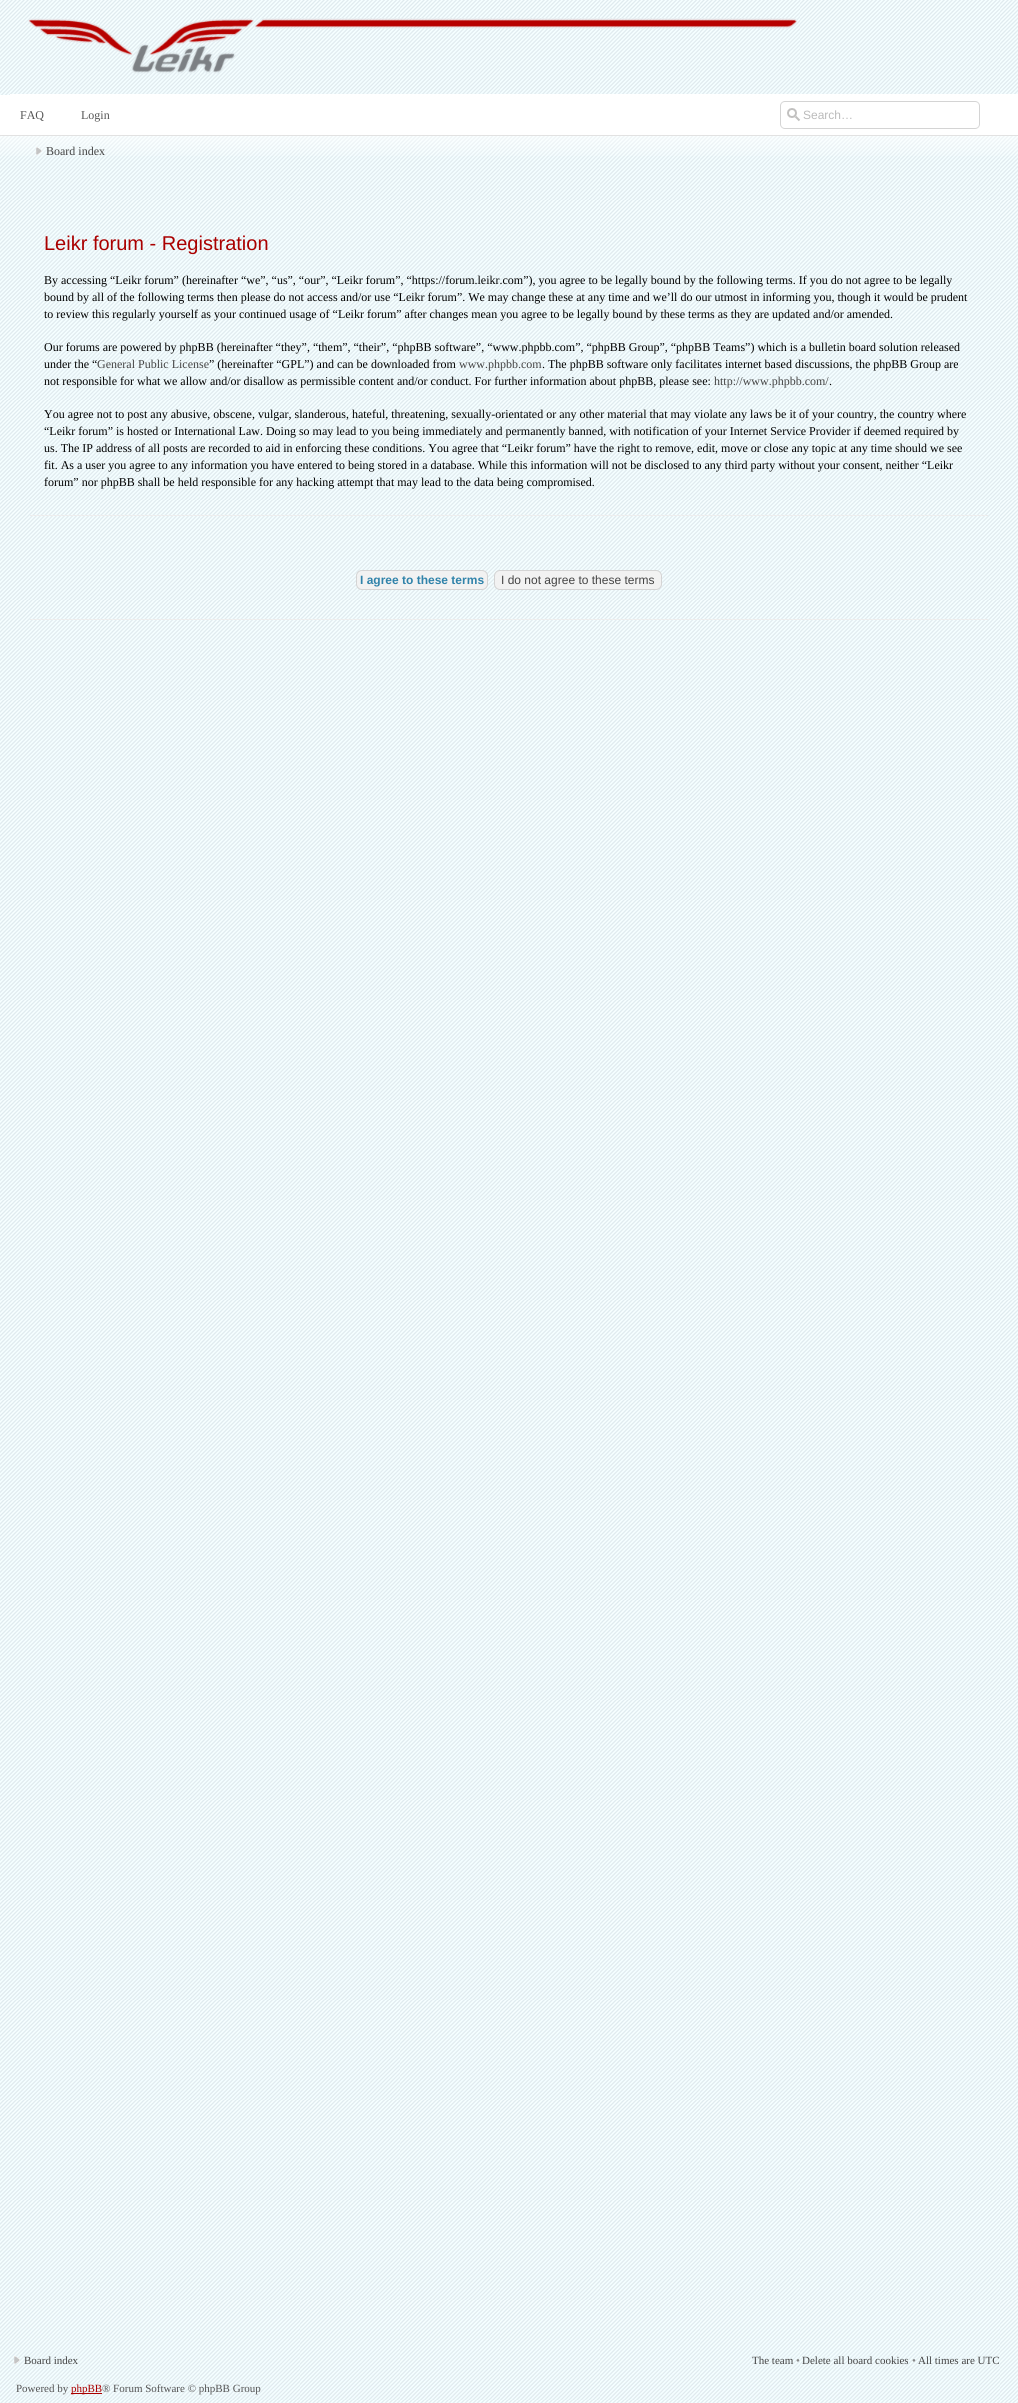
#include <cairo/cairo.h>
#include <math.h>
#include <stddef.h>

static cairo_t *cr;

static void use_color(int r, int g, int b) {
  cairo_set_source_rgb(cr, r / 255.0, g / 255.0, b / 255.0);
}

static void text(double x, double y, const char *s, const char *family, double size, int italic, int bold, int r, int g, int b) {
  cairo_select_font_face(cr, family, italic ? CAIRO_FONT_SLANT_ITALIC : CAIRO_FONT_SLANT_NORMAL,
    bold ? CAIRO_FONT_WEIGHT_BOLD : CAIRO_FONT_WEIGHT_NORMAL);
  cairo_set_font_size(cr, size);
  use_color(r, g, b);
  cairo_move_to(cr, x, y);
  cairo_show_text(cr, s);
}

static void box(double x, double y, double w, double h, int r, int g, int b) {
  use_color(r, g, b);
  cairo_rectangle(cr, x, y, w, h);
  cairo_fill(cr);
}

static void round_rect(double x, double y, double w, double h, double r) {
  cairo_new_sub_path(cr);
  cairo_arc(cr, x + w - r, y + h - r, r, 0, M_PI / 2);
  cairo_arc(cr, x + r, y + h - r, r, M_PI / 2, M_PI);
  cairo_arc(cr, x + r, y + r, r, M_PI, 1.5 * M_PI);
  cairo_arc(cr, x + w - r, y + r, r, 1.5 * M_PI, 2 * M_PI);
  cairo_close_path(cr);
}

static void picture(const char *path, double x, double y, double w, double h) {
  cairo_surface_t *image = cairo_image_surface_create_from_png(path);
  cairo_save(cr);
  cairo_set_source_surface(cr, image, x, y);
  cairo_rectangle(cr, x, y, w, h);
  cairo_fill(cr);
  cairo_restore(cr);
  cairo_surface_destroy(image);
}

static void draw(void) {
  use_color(255, 255, 255);
  cairo_paint(cr);
  picture("img_01.png", 0, 0, 1018, 2403);
  box(10, 94, 1008, 1, 255, 255, 255);
  picture("img_02.png", 28, 18, 770, 56);
  box(0, 95, 1018, 40, 255, 255, 255);
  picture("img_03.png", 780, 101, 200, 28);
  picture("img_04.png", 0, 136, 1018, 20);
  box(0, 135, 1018, 1, 226, 226, 226);
  picture("img_05.png", 36, 147, 6, 8);
  box(30, 515, 958, 1, 238, 238, 238);
  box(30, 619, 958, 1, 238, 238, 238);
  use_color(242, 242, 242);
  round_rect(356.5, 570.5, 131, 19, 5.5);
  cairo_fill_preserve(cr);
  use_color(212, 212, 212);
  cairo_set_line_width(cr, 1);
  cairo_stroke(cr);
  use_color(242, 242, 242);
  round_rect(494.5, 570.5, 167, 19, 5.5);
  cairo_fill_preserve(cr);
  use_color(212, 212, 212);
  cairo_stroke(cr);
  picture("img_06.png", 14, 2356, 6, 8);
  box(71, 2393, 31, 1, 170, 0, 0);
  text(20, 119, "FAQ", "Liberation Serif", 12, 0, 0, 85, 85, 85);
  text(81, 119, "Login", "Liberation Serif", 12, 0, 0, 85, 85, 85);
  text(803, 119, "Search…", "Liberation Sans", 12, 0, 0, 187, 187, 187);
  text(46, 155, "Board index", "Liberation Serif", 12, 0, 0, 68, 68, 68);
  text(44, 250, "Leikr forum - Registration", "Liberation Sans", 20, 0, 0, 170, 0, 0);
  text(44, 284, "By accessing “Leikr forum” (hereinafter “we”, “us”, “our”, “Leikr forum”, “https://forum.leikr.com”), you agree to be legally bound by the following terms. If you do not agree to be legally", "Liberation Serif", 12, 0, 0, 0, 0, 0);
  text(44, 301, "bound by all of the following terms then please do not access and/or use “Leikr forum”. We may change these at any time and we’ll do our utmost in informing you, though it would be prudent", "Liberation Serif", 12, 0, 0, 0, 0, 0);
  text(44, 318, "to review this regularly yourself as your continued usage of “Leikr forum” after changes mean you agree to be legally bound by these terms as they are updated and/or amended.", "Liberation Serif", 12, 0, 0, 0, 0, 0);
  text(44, 351, "Our forums are powered by phpBB (hereinafter “they”, “them”, “their”, “phpBB software”, “www.phpbb.com”, “phpBB Group”, “phpBB Teams”) which is a bulletin board solution released", "Liberation Serif", 12, 0, 0, 0, 0, 0);
  text(44, 368, "under the “", "Liberation Serif", 12, 0, 0, 0, 0, 0);
  text(97, 368, "General Public License", "Liberation Serif", 12, 0, 0, 68, 68, 68);
  text(209, 368, "” (hereinafter “GPL”) and can be downloaded from", "Liberation Serif", 12, 0, 0, 0, 0, 0);
  text(459, 368, "www.phpbb.com", "Liberation Serif", 12, 0, 0, 68, 68, 68);
  text(542, 368, ". The phpBB software only facilitates internet based discussions, the phpBB Group are", "Liberation Serif", 12, 0, 0, 0, 0, 0);
  text(44, 385, "not responsible for what we allow and/or disallow as permissible content and/or conduct. For further information about phpBB, please see:", "Liberation Serif", 12, 0, 0, 0, 0, 0);
  text(714, 385, "http://www.phpbb.com/", "Liberation Serif", 12, 0, 0, 68, 68, 68);
  text(829, 385, ".", "Liberation Serif", 12, 0, 0, 0, 0, 0);
  text(44, 418, "You agree not to post any abusive, obscene, vulgar, slanderous, hateful, threatening, sexually-orientated or any other material that may violate any laws be it of your country, the country where", "Liberation Serif", 12, 0, 0, 0, 0, 0);
  text(44, 435, "“Leikr forum” is hosted or International Law. Doing so may lead to you being immediately and permanently banned, with notification of your Internet Service Provider if deemed required by", "Liberation Serif", 12, 0, 0, 0, 0, 0);
  text(44, 452, "us. The IP address of all posts are recorded to aid in enforcing these conditions. You agree that “Leikr forum” have the right to remove, edit, move or close any topic at any time should we see", "Liberation Serif", 12, 0, 0, 0, 0, 0);
  text(44, 469, "fit. As a user you agree to any information you have entered to being stored in a database. While this information will not be disclosed to any third party without your consent, neither “Leikr", "Liberation Serif", 12, 0, 0, 0, 0, 0);
  text(44, 486, "forum” nor phpBB shall be held responsible for any hacking attempt that may lead to the data being compromised.", "Liberation Serif", 12, 0, 0, 0, 0, 0);
  text(360, 584, "I agree to these terms", "Liberation Sans", 12, 0, 1, 48, 131, 170);
  text(501, 584, "I do not agree to these terms", "Liberation Sans", 12, 0, 0, 68, 68, 68);
  text(24, 2364, "Board index", "Liberation Serif", 11, 0, 0, 68, 68, 68);
  text(752, 2364, "The team", "Liberation Serif", 11, 0, 0, 68, 68, 68);
  text(796, 2364, "•", "Liberation Serif", 11, 0, 0, 136, 136, 136);
  text(802, 2364, "Delete all board cookies", "Liberation Serif", 11, 0, 0, 68, 68, 68);
  text(912, 2364, "•", "Liberation Serif", 11, 0, 0, 136, 136, 136);
  text(918, 2364, "All times are UTC", "Liberation Serif", 11, 0, 0, 68, 68, 68);
  text(16, 2392, "Powered by", "Liberation Serif", 11, 0, 0, 85, 85, 85);
  text(71, 2392, "phpBB", "Liberation Serif", 11, 0, 0, 170, 0, 0);
  text(102, 2392, "® Forum Software © phpBB Group", "Liberation Serif", 11, 0, 0, 85, 85, 85);
}

int main(void) {
  cairo_surface_t *surface = cairo_image_surface_create(CAIRO_FORMAT_RGB24, 1018, 2403);
  cr = cairo_create(surface);
  cairo_font_options_t *options = cairo_font_options_create();
  cairo_font_options_set_hint_metrics(options, CAIRO_HINT_METRICS_OFF);
  cairo_font_options_set_hint_style(options, CAIRO_HINT_STYLE_NONE);
  cairo_set_font_options(cr, options);
  cairo_set_miter_limit(cr, 4);
  draw();
  cairo_surface_write_to_png(surface, "out.png");
  cairo_font_options_destroy(options);
  cairo_destroy(cr);
  cairo_surface_destroy(surface);
  return 0;
}
